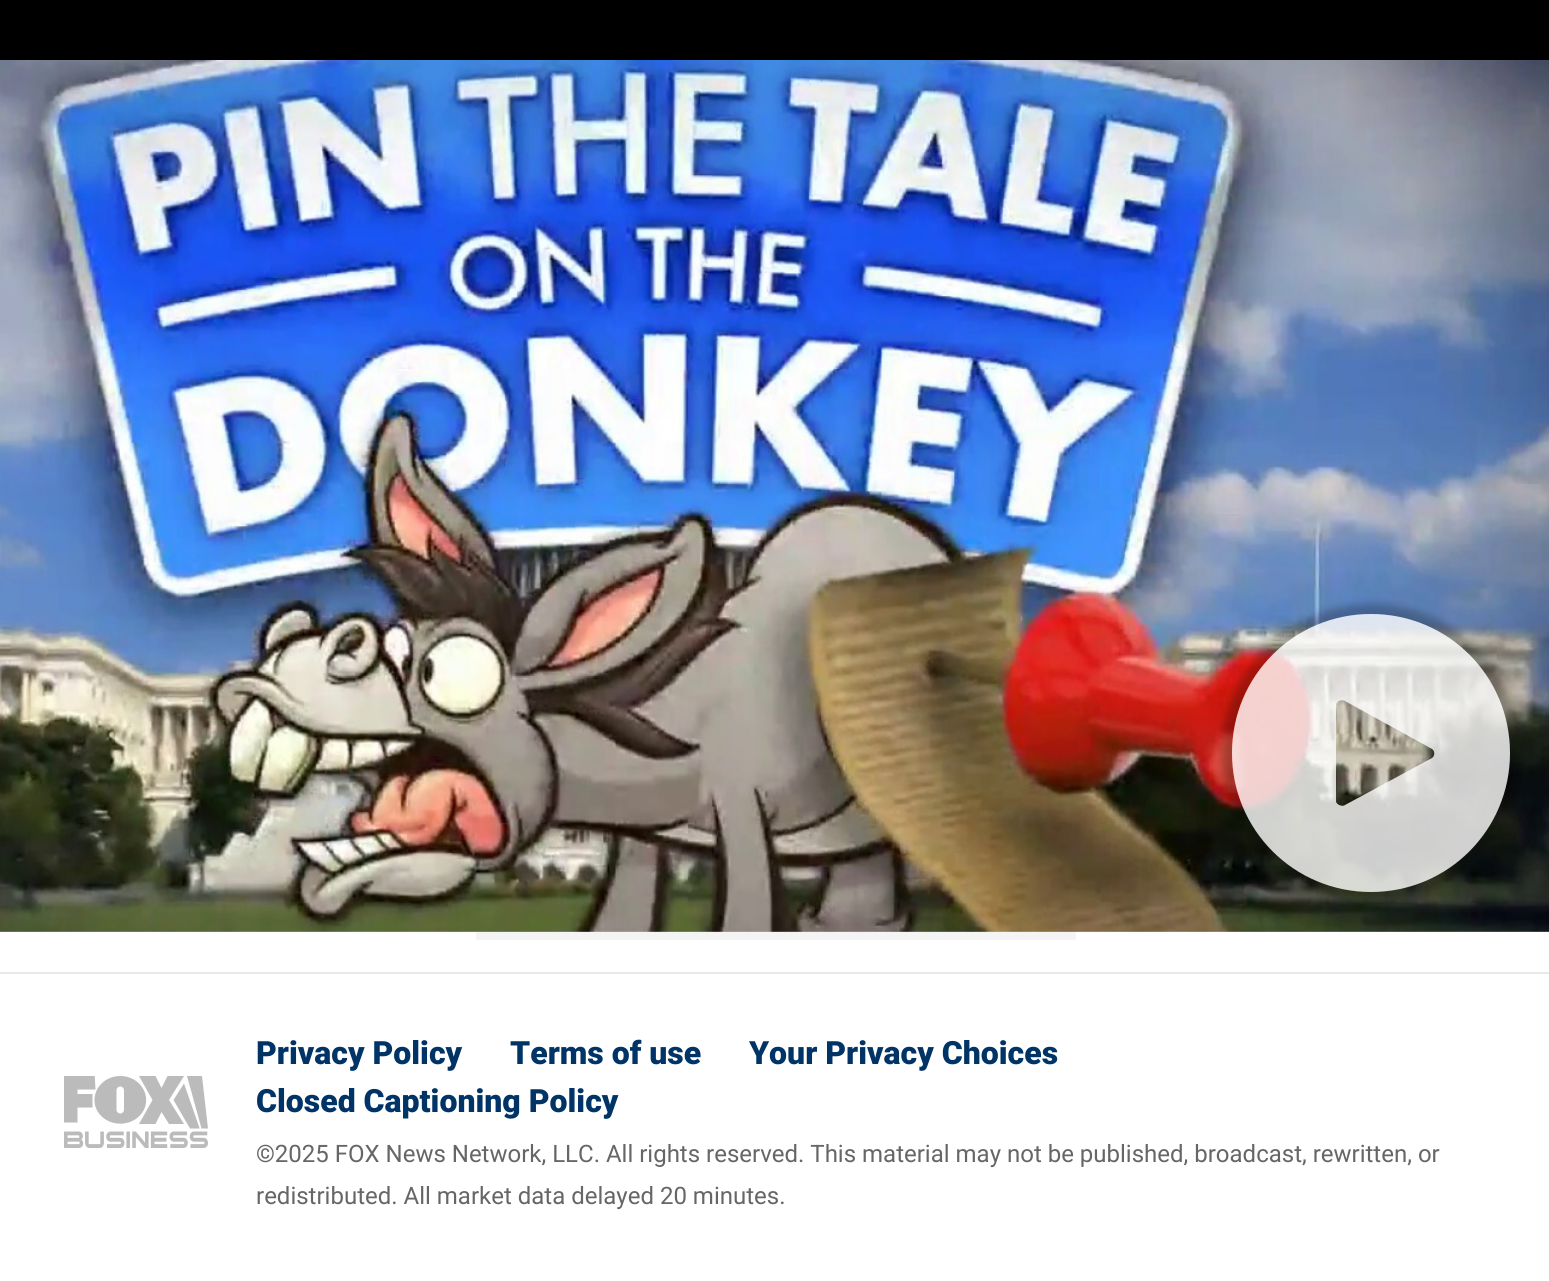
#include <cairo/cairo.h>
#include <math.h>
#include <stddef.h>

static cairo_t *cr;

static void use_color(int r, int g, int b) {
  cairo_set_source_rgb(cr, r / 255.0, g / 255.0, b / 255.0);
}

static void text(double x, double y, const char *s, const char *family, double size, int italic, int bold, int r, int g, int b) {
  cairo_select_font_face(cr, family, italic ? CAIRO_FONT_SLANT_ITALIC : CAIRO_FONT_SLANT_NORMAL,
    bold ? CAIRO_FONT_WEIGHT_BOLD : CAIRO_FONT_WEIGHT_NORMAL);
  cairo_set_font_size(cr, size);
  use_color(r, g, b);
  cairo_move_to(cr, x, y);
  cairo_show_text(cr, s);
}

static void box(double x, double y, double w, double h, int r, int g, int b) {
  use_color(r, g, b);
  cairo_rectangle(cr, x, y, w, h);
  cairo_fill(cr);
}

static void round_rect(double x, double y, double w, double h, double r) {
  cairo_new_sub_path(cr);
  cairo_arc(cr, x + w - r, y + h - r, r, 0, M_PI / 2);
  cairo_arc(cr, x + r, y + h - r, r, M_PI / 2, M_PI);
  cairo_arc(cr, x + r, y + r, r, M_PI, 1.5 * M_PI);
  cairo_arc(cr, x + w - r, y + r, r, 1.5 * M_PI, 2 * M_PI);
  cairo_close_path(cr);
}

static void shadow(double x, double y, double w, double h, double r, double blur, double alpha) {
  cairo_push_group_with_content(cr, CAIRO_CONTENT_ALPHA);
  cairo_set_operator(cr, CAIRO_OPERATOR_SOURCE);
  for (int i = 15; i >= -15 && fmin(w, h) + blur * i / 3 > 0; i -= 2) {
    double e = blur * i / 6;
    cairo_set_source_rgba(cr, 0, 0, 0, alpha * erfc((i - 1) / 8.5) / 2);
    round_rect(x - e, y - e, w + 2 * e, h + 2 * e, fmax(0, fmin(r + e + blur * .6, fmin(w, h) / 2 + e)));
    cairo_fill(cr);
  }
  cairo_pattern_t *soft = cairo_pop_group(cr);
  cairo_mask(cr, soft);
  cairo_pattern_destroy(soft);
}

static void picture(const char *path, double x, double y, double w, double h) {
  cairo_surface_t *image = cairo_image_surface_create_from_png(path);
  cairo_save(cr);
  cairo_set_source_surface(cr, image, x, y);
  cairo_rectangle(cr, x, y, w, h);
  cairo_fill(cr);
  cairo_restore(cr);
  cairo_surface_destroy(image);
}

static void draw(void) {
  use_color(255, 255, 255);
  cairo_paint(cr);
  box(0, 0, 1549, 60, 0, 0, 0);
  box(476, 931, 600, 9, 244, 244, 244);
  picture("img_01.png", 0, 60, 1549, 872);
  cairo_save(cr);
  cairo_set_fill_rule(cr, CAIRO_FILL_RULE_EVEN_ODD);
  cairo_new_path(cr);
  cairo_move_to(cr, 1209, 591);
  cairo_line_to(cr, 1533, 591);
  cairo_line_to(cr, 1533, 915);
  cairo_line_to(cr, 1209, 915);
  cairo_close_path(cr);
  cairo_move_to(cr, 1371, 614);
  cairo_curve_to(cr, 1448, 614, 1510, 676, 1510, 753);
  cairo_curve_to(cr, 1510, 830, 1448, 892, 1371, 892);
  cairo_curve_to(cr, 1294, 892, 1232, 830, 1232, 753);
  cairo_curve_to(cr, 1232, 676, 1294, 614, 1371, 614);
  cairo_close_path(cr);
  cairo_clip(cr);
  use_color(0, 0, 0);
  shadow(1222, 604, 298, 298, 149, 4, 0.24);
  cairo_restore(cr);
  cairo_set_source_rgba(cr, 1, 1, 1, 0.8);
  cairo_set_fill_rule(cr, CAIRO_FILL_RULE_EVEN_ODD);
  cairo_new_path(cr);
  cairo_move_to(cr, 1371, 614);
  cairo_curve_to(cr, 1294, 614, 1232, 676, 1232, 753);
  cairo_curve_to(cr, 1232, 830, 1294, 892, 1371, 892);
  cairo_curve_to(cr, 1448, 892, 1510, 830, 1510, 753);
  cairo_curve_to(cr, 1510, 676, 1448, 614, 1371, 614);
  cairo_close_path(cr);
  cairo_move_to(cr, 1432, 758);
  cairo_curve_to(cr, 1435, 756, 1435, 751, 1432, 749);
  cairo_line_to(cr, 1345, 701);
  cairo_curve_to(cr, 1343, 699, 1336, 701, 1336, 705);
  cairo_line_to(cr, 1336, 801);
  cairo_curve_to(cr, 1336, 805, 1343, 807, 1345, 805);
  cairo_close_path(cr);
  cairo_fill(cr);
  box(0, 972, 1549, 2, 232, 232, 232);
  picture("img_02.png", 64, 1076, 144, 72);
  text(256, 1064, "Privacy Policy", "Roboto Black", 32, 0, 0, 0, 51, 102);
  text(510, 1064, "Terms of use", "Roboto Black", 32, 0, 0, 0, 51, 102);
  text(749, 1064, "Your Privacy Choices", "Roboto Black", 32, 0, 0, 0, 51, 102);
  text(256, 1112, "Closed Captioning Policy", "Roboto Black", 32, 0, 0, 0, 51, 102);
  text(256, 1162, "©2025 FOX News Network, LLC. All rights reserved. This material may not be published, broadcast, rewritten, or", "Roboto", 24, 0, 0, 102, 102, 102);
  text(256, 1204, "redistributed. All market data delayed 20 minutes.", "Roboto", 24, 0, 0, 102, 102, 102);
}

int main(void) {
  cairo_surface_t *surface = cairo_image_surface_create(CAIRO_FORMAT_RGB24, 1549, 1281);
  cr = cairo_create(surface);
  cairo_font_options_t *options = cairo_font_options_create();
  cairo_font_options_set_hint_metrics(options, CAIRO_HINT_METRICS_OFF);
  cairo_font_options_set_hint_style(options, CAIRO_HINT_STYLE_NONE);
  cairo_set_font_options(cr, options);
  cairo_set_miter_limit(cr, 4);
  draw();
  cairo_surface_write_to_png(surface, "out.png");
  cairo_font_options_destroy(options);
  cairo_destroy(cr);
  cairo_surface_destroy(surface);
  return 0;
}
